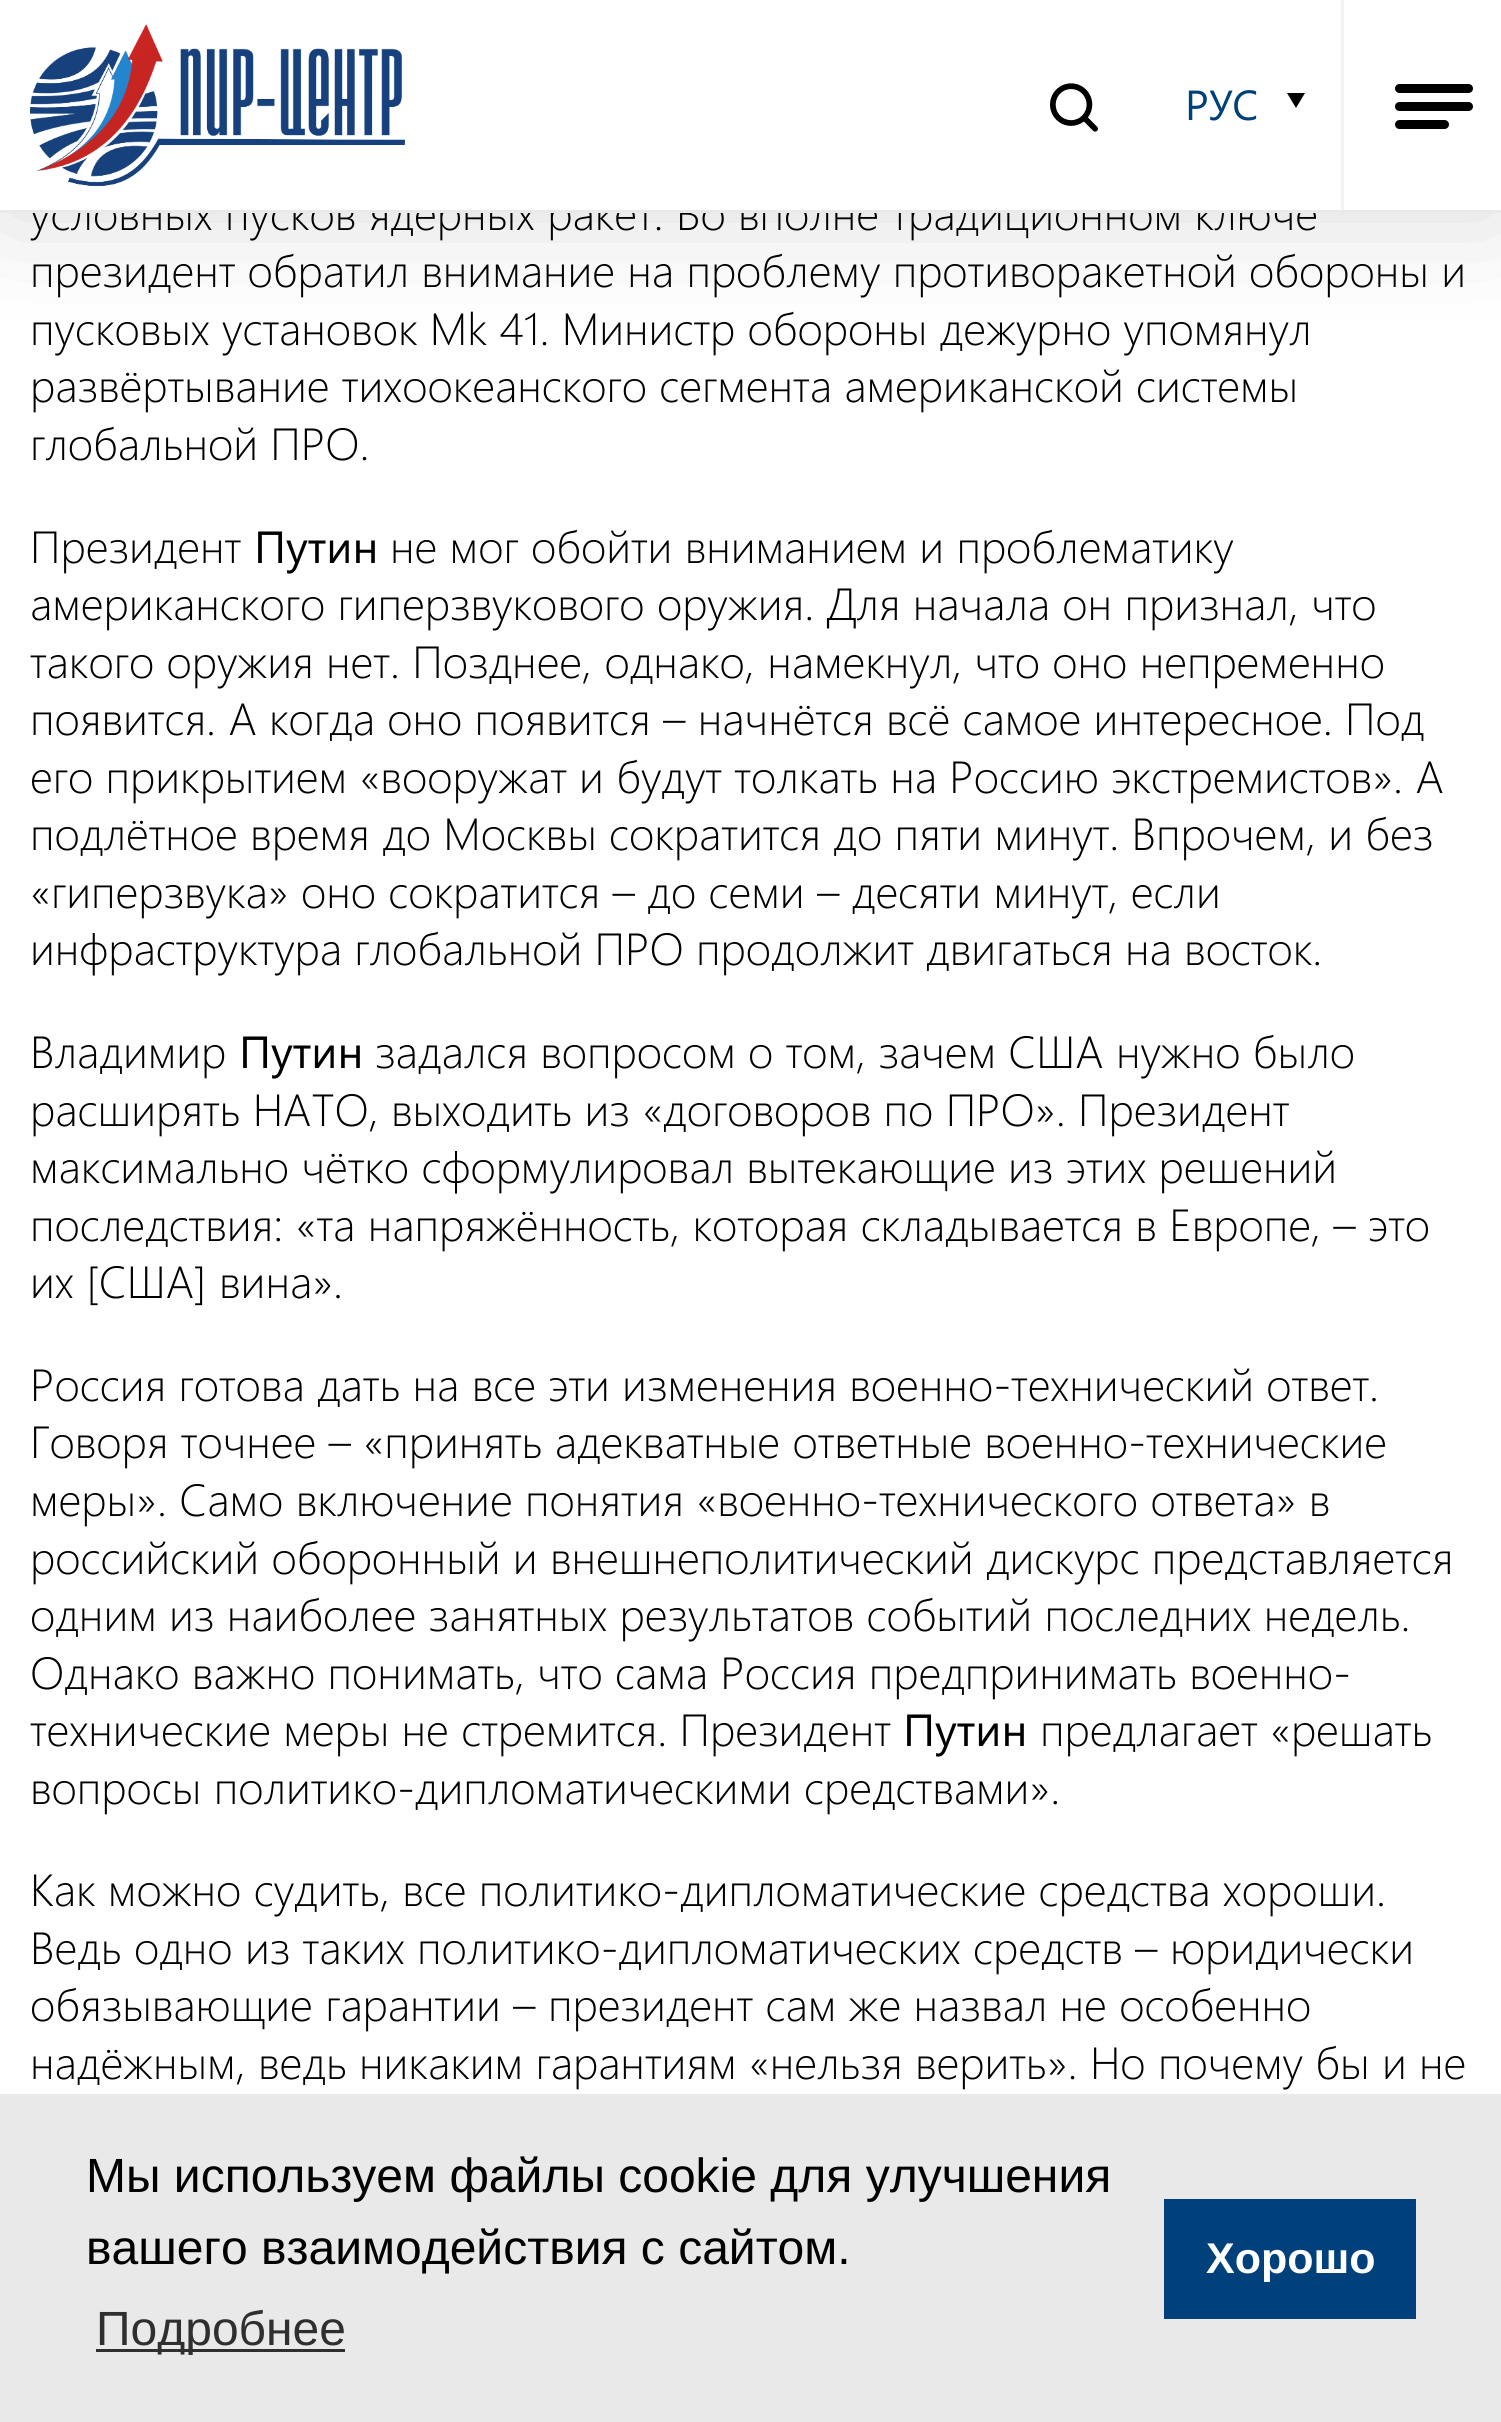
#include <cairo/cairo.h>
#include <math.h>
#include <stddef.h>

static cairo_t *cr;

static void use_color(int r, int g, int b) {
  cairo_set_source_rgb(cr, r / 255.0, g / 255.0, b / 255.0);
}

static void text(double x, double y, const char *s, const char *family, double size, int italic, int bold, int r, int g, int b) {
  cairo_select_font_face(cr, family, italic ? CAIRO_FONT_SLANT_ITALIC : CAIRO_FONT_SLANT_NORMAL,
    bold ? CAIRO_FONT_WEIGHT_BOLD : CAIRO_FONT_WEIGHT_NORMAL);
  cairo_set_font_size(cr, size);
  use_color(r, g, b);
  cairo_move_to(cr, x, y);
  cairo_show_text(cr, s);
}

static void box(double x, double y, double w, double h, int r, int g, int b) {
  use_color(r, g, b);
  cairo_rectangle(cr, x, y, w, h);
  cairo_fill(cr);
}

static void round_rect(double x, double y, double w, double h, double r) {
  cairo_new_sub_path(cr);
  cairo_arc(cr, x + w - r, y + h - r, r, 0, M_PI / 2);
  cairo_arc(cr, x + r, y + h - r, r, M_PI / 2, M_PI);
  cairo_arc(cr, x + r, y + r, r, M_PI, 1.5 * M_PI);
  cairo_arc(cr, x + w - r, y + r, r, 1.5 * M_PI, 2 * M_PI);
  cairo_close_path(cr);
}

static void shadow(double x, double y, double w, double h, double r, double blur, double alpha) {
  cairo_push_group_with_content(cr, CAIRO_CONTENT_ALPHA);
  cairo_set_operator(cr, CAIRO_OPERATOR_SOURCE);
  for (int i = 15; i >= -15 && fmin(w, h) + blur * i / 3 > 0; i -= 2) {
    double e = blur * i / 6;
    cairo_set_source_rgba(cr, 0, 0, 0, alpha * erfc((i - 1) / 8.5) / 2);
    round_rect(x - e, y - e, w + 2 * e, h + 2 * e, fmax(0, fmin(r + e + blur * .6, fmin(w, h) / 2 + e)));
    cairo_fill(cr);
  }
  cairo_pattern_t *soft = cairo_pop_group(cr);
  cairo_mask(cr, soft);
  cairo_pattern_destroy(soft);
}

static void picture(const char *path, double x, double y, double w, double h) {
  cairo_surface_t *image = cairo_image_surface_create_from_png(path);
  cairo_save(cr);
  cairo_set_source_surface(cr, image, x, y);
  cairo_rectangle(cr, x, y, w, h);
  cairo_fill(cr);
  cairo_restore(cr);
  cairo_surface_destroy(image);
}

static void draw(void) {
  use_color(255, 255, 255);
  cairo_paint(cr);
  use_color(0, 0, 0);
  shadow(0, 0, 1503, 213, 0, 60, 0.15);
  box(0, 2094, 1501, 328, 233, 233, 233);
  box(96, 2349, 249, 3, 47, 47, 47);
  box(1164, 2199, 252, 120, 0, 65, 123);
  text(30, 230, "условных пусков ядерных ракет. Во вполне традиционном ключе", "Segoe UI Light", 45, 0, 0, 0, 0, 0);
  box(0, 0, 1501, 210, 255, 255, 255);
  use_color(0, 0, 0);
  cairo_new_path(cr);
  cairo_move_to(cr, 1287, 93);
  cairo_line_to(cr, 1305, 93);
  cairo_line_to(cr, 1296, 108);
  cairo_close_path(cr);
  cairo_fill(cr);
  text(1185, 120, "РУС", "Segoe UI", 42, 0, 0, 0, 65, 123);
  use_color(0, 0, 0);
  round_rect(1395, 120, 54, 9, 4.5);
  cairo_fill(cr);
  round_rect(1395, 102, 78, 9, 4.5);
  cairo_fill(cr);
  round_rect(1395, 84, 78, 9, 4.5);
  cairo_fill(cr);
  picture("img_02.png", 1050, 83, 48, 49);
  picture("img_01.png", 30, 24, 375, 162);
  box(1341, 0, 3, 210, 242, 242, 242);
  box(0, 210, 1501, 3, 233, 233, 233);
  text(30, 287, "президент обратил внимание на проблему противоракетной обороны и", "Segoe UI Light", 45, 0, 0, 0, 0, 0);
  text(30, 345, "пусковых установок Mk 41. Министр обороны дежурно упомянул", "Segoe UI Light", 45, 0, 0, 0, 0, 0);
  text(30, 402, "развёртывание тихоокеанского сегмента американской системы", "Segoe UI Light", 45, 0, 0, 0, 0, 0);
  text(30, 460, "глобальной ПРО.", "Segoe UI Light", 45, 0, 0, 0, 0, 0);
  text(30, 563, "Президент", "Segoe UI Light", 45, 0, 0, 0, 0, 0);
  text(254, 563, "Путин", "Segoe UI", 45, 0, 0, 0, 0, 0);
  text(390, 563, "не мог обойти вниманием и проблематику", "Segoe UI Light", 45, 0, 0, 0, 0, 0);
  text(30, 620, "американского гиперзвукового оружия. Для начала он признал, что", "Segoe UI Light", 45, 0, 0, 0, 0, 0);
  text(30, 678, "такого оружия нет. Позднее, однако, намекнул, что оно непременно", "Segoe UI Light", 45, 0, 0, 0, 0, 0);
  text(30, 735, "появится. А когда оно появится – начнётся всё самое интересное. Под", "Segoe UI Light", 45, 0, 0, 0, 0, 0);
  text(30, 793, "его прикрытием «вооружат и будут толкать на Россию экстремистов». А", "Segoe UI Light", 45, 0, 0, 0, 0, 0);
  text(30, 850, "подлётное время до Москвы сократится до пяти минут. Впрочем, и без", "Segoe UI Light", 45, 0, 0, 0, 0, 0);
  text(30, 908, "«гиперзвука» оно сократится – до семи – десяти минут, если", "Segoe UI Light", 45, 0, 0, 0, 0, 0);
  text(30, 965, "инфраструктура глобальной ПРО продолжит двигаться на восток.", "Segoe UI Light", 45, 0, 0, 0, 0, 0);
  text(30, 1068, "Владимир", "Segoe UI Light", 45, 0, 0, 0, 0, 0);
  text(239, 1068, "Путин", "Segoe UI", 45, 0, 0, 0, 0, 0);
  text(375, 1068, "задался вопросом о том, зачем США нужно было", "Segoe UI Light", 45, 0, 0, 0, 0, 0);
  text(30, 1126, "расширять НАТО, выходить из «договоров по ПРО». Президент", "Segoe UI Light", 45, 0, 0, 0, 0, 0);
  text(30, 1183, "максимально чётко сформулировал вытекающие из этих решений", "Segoe UI Light", 45, 0, 0, 0, 0, 0);
  text(30, 1241, "последствия: «та напряжённость, которая складывается в Европе, – это", "Segoe UI Light", 45, 0, 0, 0, 0, 0);
  text(30, 1298, "их [США] вина».", "Segoe UI Light", 45, 0, 0, 0, 0, 0);
  text(30, 1401, "Россия готова дать на все эти изменения военно-технический ответ.", "Segoe UI Light", 45, 0, 0, 0, 0, 0);
  text(30, 1458, "Говоря точнее – «принять адекватные ответные военно-технические", "Segoe UI Light", 45, 0, 0, 0, 0, 0);
  text(30, 1516, "меры». Само включение понятия «военно-технического ответа» в", "Segoe UI Light", 45, 0, 0, 0, 0, 0);
  text(30, 1574, "российский оборонный и внешнеполитический дискурс представляется", "Segoe UI Light", 45, 0, 0, 0, 0, 0);
  text(30, 1631, "одним из наиболее занятных результатов событий последних недель.", "Segoe UI Light", 45, 0, 0, 0, 0, 0);
  text(30, 1689, "Однако важно понимать, что сама Россия предпринимать военно-", "Segoe UI Light", 45, 0, 0, 0, 0, 0);
  text(30, 1746, "технические меры не стремится. Президент", "Segoe UI Light", 45, 0, 0, 0, 0, 0);
  text(903, 1746, "Путин", "Segoe UI", 45, 0, 0, 0, 0, 0);
  text(1040, 1746, "предлагает «решать", "Segoe UI Light", 45, 0, 0, 0, 0, 0);
  text(30, 1804, "вопросы политико-дипломатическими средствами».", "Segoe UI Light", 45, 0, 0, 0, 0, 0);
  text(30, 1906, "Как можно судить, все политико-дипломатические средства хороши.", "Segoe UI Light", 45, 0, 0, 0, 0, 0);
  text(30, 1964, "Ведь одно из таких политико-дипломатических средств – юридически", "Segoe UI Light", 45, 0, 0, 0, 0, 0);
  text(30, 2021, "обязывающие гарантии – президент сам же назвал не особенно", "Segoe UI Light", 45, 0, 0, 0, 0, 0);
  text(30, 2079, "надёжным, ведь никаким гарантиям «нельзя верить». Но почему бы и не", "Segoe UI Light", 45, 0, 0, 0, 0, 0);
  text(86, 2192, "Мы используем файлы cookie для улучшения", "Liberation Sans", 48, 0, 0, 0, 0, 0);
  text(86, 2264, "вашего взаимодействия с сайтом.", "Liberation Sans", 48, 0, 0, 0, 0, 0);
  text(96, 2345, "Подробнее", "Liberation Sans", 48, 0, 0, 47, 47, 47);
  text(1206, 2273, "Хорошо", "Liberation Sans", 43, 0, 1, 255, 255, 255);
}

int main(void) {
  cairo_surface_t *surface = cairo_image_surface_create(CAIRO_FORMAT_RGB24, 1501, 2422);
  cr = cairo_create(surface);
  cairo_font_options_t *options = cairo_font_options_create();
  cairo_font_options_set_hint_metrics(options, CAIRO_HINT_METRICS_OFF);
  cairo_font_options_set_hint_style(options, CAIRO_HINT_STYLE_NONE);
  cairo_set_font_options(cr, options);
  cairo_set_miter_limit(cr, 4);
  draw();
  cairo_surface_write_to_png(surface, "out.png");
  cairo_font_options_destroy(options);
  cairo_destroy(cr);
  cairo_surface_destroy(surface);
  return 0;
}
